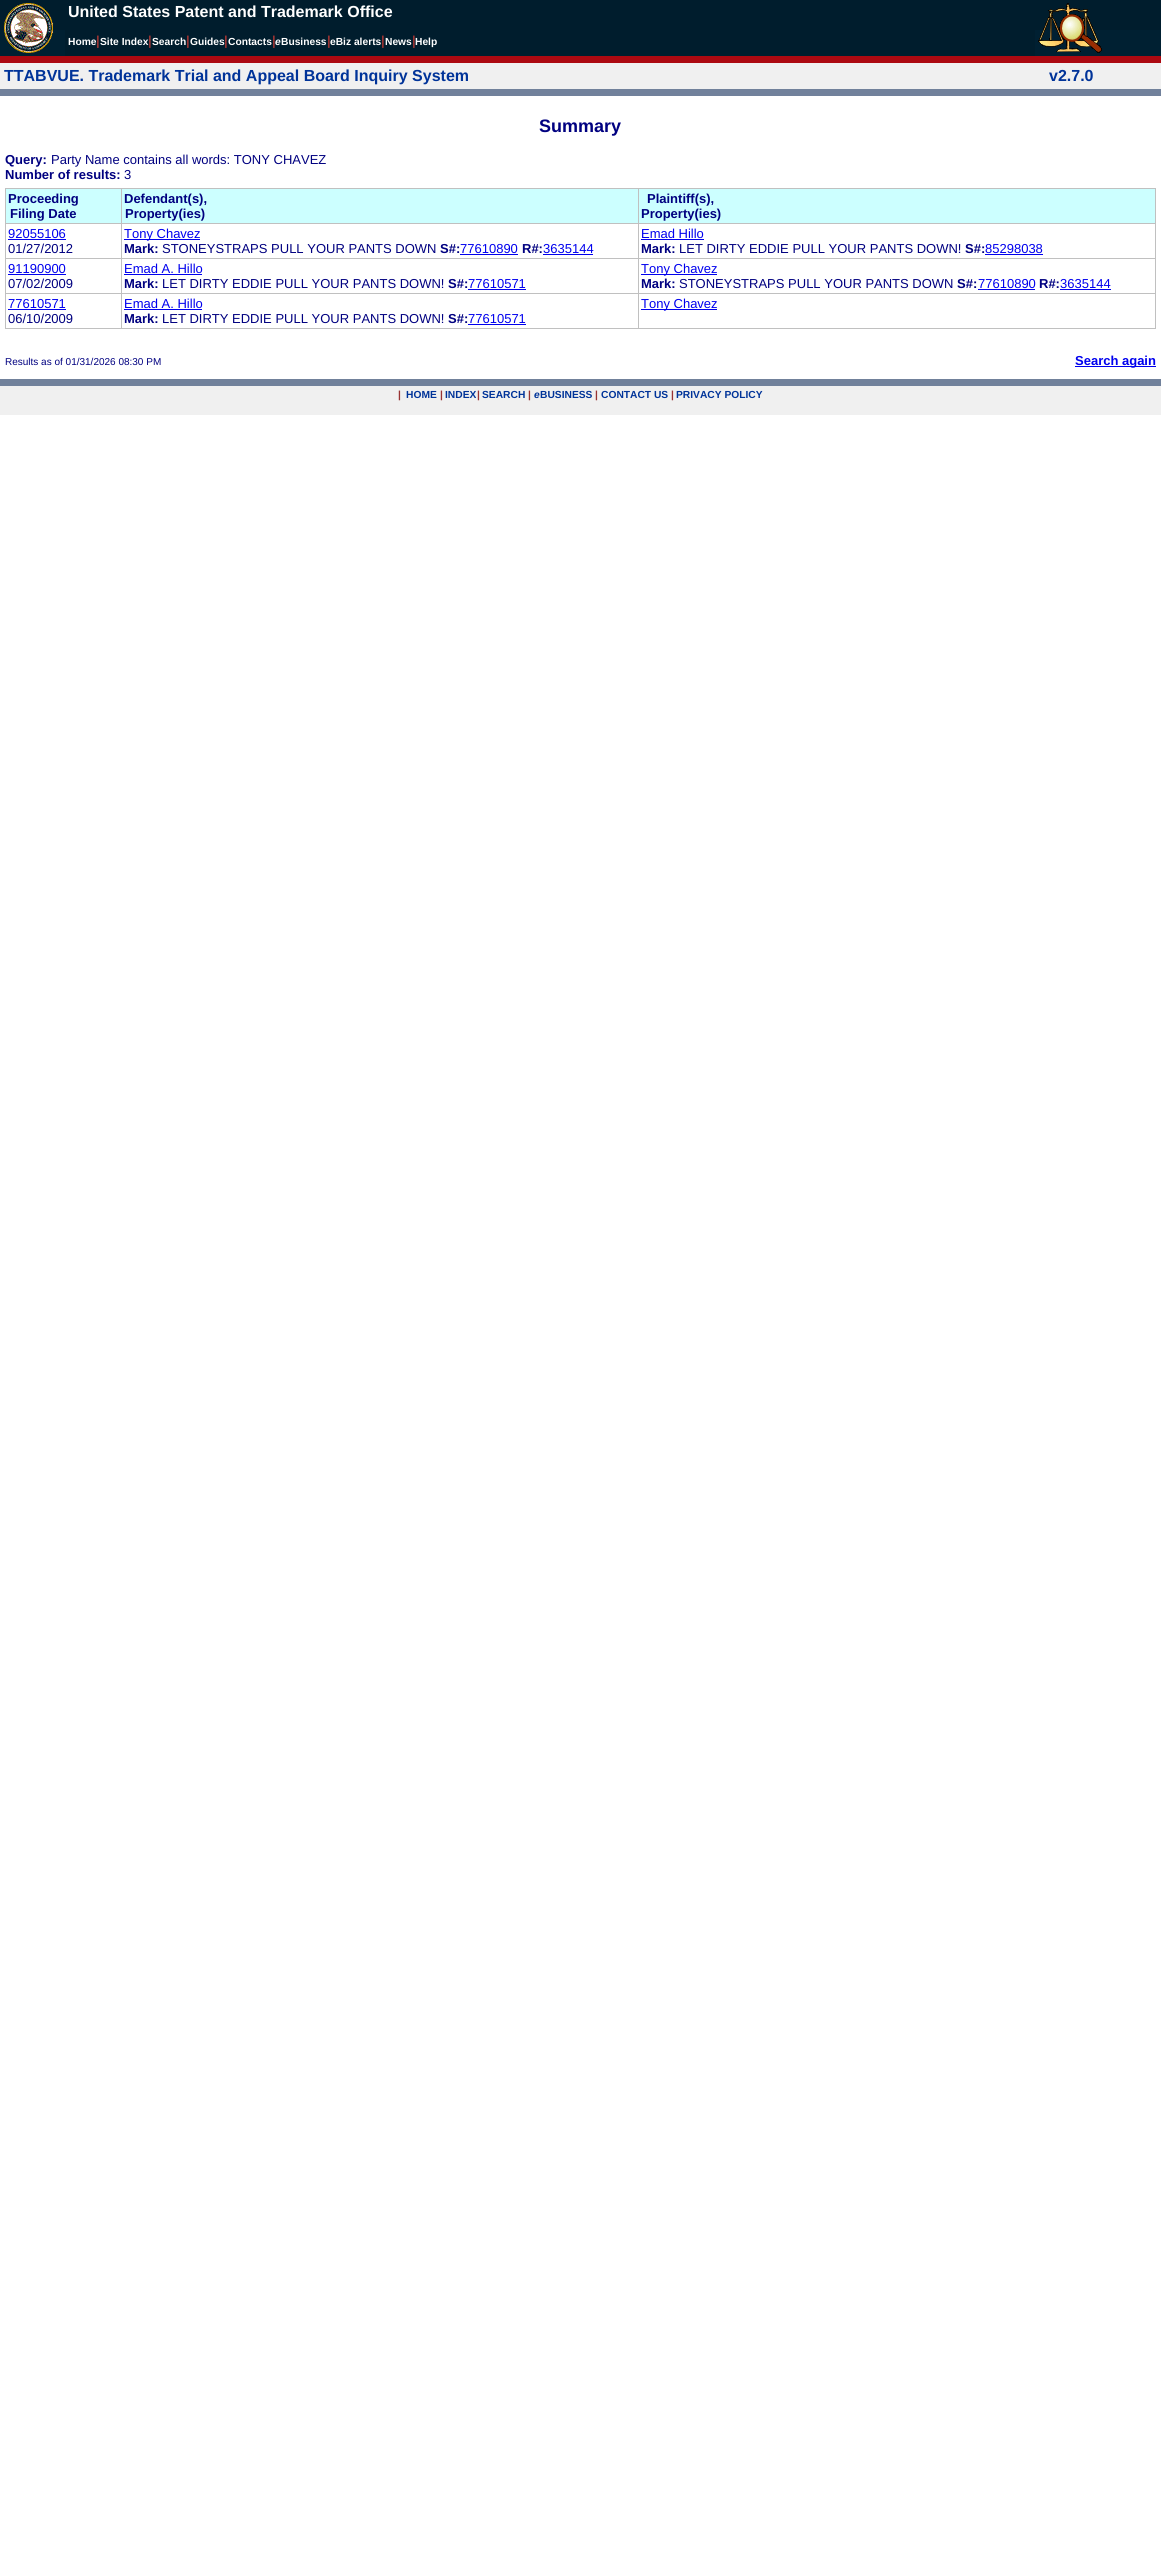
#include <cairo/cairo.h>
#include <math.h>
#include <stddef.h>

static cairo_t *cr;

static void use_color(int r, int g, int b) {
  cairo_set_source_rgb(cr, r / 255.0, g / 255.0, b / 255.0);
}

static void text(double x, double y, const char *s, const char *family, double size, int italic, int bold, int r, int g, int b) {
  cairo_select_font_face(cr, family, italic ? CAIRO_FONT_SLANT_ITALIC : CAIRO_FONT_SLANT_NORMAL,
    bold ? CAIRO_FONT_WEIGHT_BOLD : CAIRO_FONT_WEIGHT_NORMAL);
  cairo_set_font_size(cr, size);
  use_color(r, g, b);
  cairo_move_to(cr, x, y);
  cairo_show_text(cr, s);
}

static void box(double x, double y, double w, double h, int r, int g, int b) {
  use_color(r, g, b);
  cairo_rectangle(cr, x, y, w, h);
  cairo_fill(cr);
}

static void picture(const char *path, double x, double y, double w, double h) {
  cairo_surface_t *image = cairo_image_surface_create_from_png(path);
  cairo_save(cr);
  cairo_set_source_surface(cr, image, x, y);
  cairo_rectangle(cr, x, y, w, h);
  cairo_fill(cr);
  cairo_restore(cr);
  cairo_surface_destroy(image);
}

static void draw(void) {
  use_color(255, 255, 255);
  cairo_paint(cr);
  box(0, 0, 1161, 30, 0, 29, 45);
  box(0, 30, 1161, 26, 0, 32, 50);
  picture("img_01.png", 4, 3, 49, 50);
  picture("img_02.png", 1038, 3, 64, 50);
  box(65, 30, 970, 26, 0, 29, 45);
  box(0, 56, 1161, 7, 172, 9, 17);
  box(0, 63, 1161, 26, 240, 240, 240);
  box(0, 89, 1161, 7, 113, 129, 155);
  box(5, 188, 1151, 141, 192, 192, 192);
  box(6, 189, 115, 34, 204, 255, 255);
  box(122, 189, 516, 34, 204, 255, 255);
  box(639, 189, 516, 34, 204, 255, 255);
  box(6, 224, 115, 34, 255, 255, 255);
  box(8, 239, 58, 1, 0, 0, 238);
  box(122, 224, 516, 34, 255, 255, 255);
  box(124, 239, 76, 1, 0, 0, 238);
  box(460, 254, 58, 1, 0, 0, 238);
  box(543, 254, 50, 1, 0, 0, 238);
  box(639, 224, 516, 34, 255, 255, 255);
  box(641, 239, 63, 1, 0, 0, 238);
  box(985, 254, 58, 1, 0, 0, 238);
  box(6, 259, 115, 34, 255, 255, 255);
  box(8, 274, 58, 1, 0, 0, 238);
  box(122, 259, 516, 34, 255, 255, 255);
  box(124, 274, 78, 1, 0, 0, 238);
  box(468, 289, 58, 1, 0, 0, 238);
  box(639, 259, 516, 34, 255, 255, 255);
  box(641, 274, 76, 1, 0, 0, 238);
  box(978, 289, 57, 1, 0, 0, 238);
  box(1060, 289, 51, 1, 0, 0, 238);
  box(6, 294, 115, 34, 255, 255, 255);
  box(8, 309, 58, 1, 0, 0, 238);
  box(122, 294, 516, 34, 255, 255, 255);
  box(124, 309, 78, 1, 0, 0, 238);
  box(468, 324, 58, 1, 0, 0, 238);
  box(639, 294, 516, 34, 255, 255, 255);
  box(641, 309, 76, 1, 0, 0, 238);
  box(1075, 366, 81, 1, 0, 0, 238);
  box(0, 379, 1161, 7, 113, 129, 155);
  box(0, 386, 1161, 29, 240, 240, 240);
  text(68, 17, "United States Patent and Trademark Office", "Liberation Sans", 16, 0, 1, 255, 255, 255);
  text(68, 45, "Home", "Liberation Sans", 10.25, 0, 1, 255, 255, 255);
  text(96, 45, "|", "Liberation Sans", 13, 0, 1, 153, 51, 51);
  text(100, 45, "Site Index", "Liberation Sans", 10.25, 0, 1, 255, 255, 255);
  text(148, 45, "|", "Liberation Sans", 13, 0, 1, 153, 51, 51);
  text(152, 45, "Search", "Liberation Sans", 10.25, 0, 1, 255, 255, 255);
  text(186, 45, "|", "Liberation Sans", 13, 0, 1, 153, 51, 51);
  text(190, 45, "Guides", "Liberation Sans", 10.25, 0, 1, 255, 255, 255);
  text(224, 45, "|", "Liberation Sans", 13, 0, 1, 153, 51, 51);
  text(228, 45, "Contacts", "Liberation Sans", 10.25, 0, 1, 255, 255, 255);
  text(272, 45, "|", "Liberation Sans", 13, 0, 1, 153, 51, 51);
  text(275, 45, "e", "Liberation Sans", 10.25, 1, 1, 255, 255, 255);
  text(281, 45, "Business", "Liberation Sans", 10.25, 0, 1, 255, 255, 255);
  text(327, 45, "|", "Liberation Sans", 13, 0, 1, 153, 51, 51);
  text(330, 45, "eBiz alerts", "Liberation Sans", 10.25, 0, 1, 255, 255, 255);
  text(381, 45, "|", "Liberation Sans", 13, 0, 1, 153, 51, 51);
  text(385, 45, "News", "Liberation Sans", 10.25, 0, 1, 255, 255, 255);
  text(412, 45, "|", "Liberation Sans", 13, 0, 1, 153, 51, 51);
  text(415, 45, "Help", "Liberation Sans", 10.25, 0, 1, 255, 255, 255);
  text(4, 81, "TTABVUE. Trademark Trial and Appeal Board Inquiry System", "Liberation Sans", 16, 0, 1, 0, 51, 153);
  text(1049, 81, "v2.7.0", "Liberation Sans", 16, 0, 1, 0, 51, 153);
  text(539, 132, "Summary", "Liberation Sans", 18, 0, 1, 0, 0, 128);
  text(5, 164, "Query:", "Liberation Sans", 13, 0, 1, 0, 0, 128);
  text(51, 164, "Party Name contains all words: TONY CHAVEZ", "Liberation Sans", 13, 0, 0, 0, 0, 128);
  text(5, 179, "Number of results:", "Liberation Sans", 13, 0, 1, 0, 0, 128);
  text(124, 179, "3", "Liberation Sans", 13, 0, 0, 0, 0, 128);
  text(8, 203, "Proceeding", "Liberation Sans", 13, 0, 1, 0, 0, 128);
  text(10, 218, "Filing Date", "Liberation Sans", 13, 0, 1, 0, 0, 128);
  text(124, 203, "Defendant(s),", "Liberation Sans", 13, 0, 1, 0, 0, 128);
  text(125, 218, "Property(ies)", "Liberation Sans", 13, 0, 1, 0, 0, 128);
  text(647, 203, "Plaintiff(s),", "Liberation Sans", 13, 0, 1, 0, 0, 128);
  text(641, 218, "Property(ies)", "Liberation Sans", 13, 0, 1, 0, 0, 128);
  text(8, 238, "92055106", "Liberation Sans", 13, 0, 0, 0, 0, 238);
  text(8, 253, "01/27/2012", "Liberation Sans", 13, 0, 0, 0, 0, 128);
  text(124, 238, "Tony Chavez", "Liberation Sans", 13, 0, 0, 0, 0, 238);
  text(124, 253, "Mark:", "Liberation Sans", 13, 0, 1, 0, 0, 128);
  text(162, 253, "STONEYSTRAPS PULL YOUR PANTS DOWN", "Liberation Sans", 13, 0, 0, 0, 0, 128);
  text(440, 253, "S#:", "Liberation Sans", 13, 0, 1, 0, 0, 128);
  text(460, 253, "77610890", "Liberation Sans", 13, 0, 0, 0, 0, 238);
  text(522, 253, "R#:", "Liberation Sans", 13, 0, 1, 0, 0, 128);
  text(543, 253, "3635144", "Liberation Sans", 13, 0, 0, 0, 0, 238);
  text(641, 238, "Emad Hillo", "Liberation Sans", 13, 0, 0, 0, 0, 238);
  text(641, 253, "Mark:", "Liberation Sans", 13, 0, 1, 0, 0, 128);
  text(679, 253, "LET DIRTY EDDIE PULL YOUR PANTS DOWN!", "Liberation Sans", 13, 0, 0, 0, 0, 128);
  text(965, 253, "S#:", "Liberation Sans", 13, 0, 1, 0, 0, 128);
  text(985, 253, "85298038", "Liberation Sans", 13, 0, 0, 0, 0, 238);
  text(8, 273, "91190900", "Liberation Sans", 13, 0, 0, 0, 0, 238);
  text(8, 288, "07/02/2009", "Liberation Sans", 13, 0, 0, 0, 0, 128);
  text(124, 273, "Emad A. Hillo", "Liberation Sans", 13, 0, 0, 0, 0, 238);
  text(124, 288, "Mark:", "Liberation Sans", 13, 0, 1, 0, 0, 128);
  text(162, 288, "LET DIRTY EDDIE PULL YOUR PANTS DOWN!", "Liberation Sans", 13, 0, 0, 0, 0, 128);
  text(448, 288, "S#:", "Liberation Sans", 13, 0, 1, 0, 0, 128);
  text(468, 288, "77610571", "Liberation Sans", 13, 0, 0, 0, 0, 238);
  text(641, 273, "Tony Chavez", "Liberation Sans", 13, 0, 0, 0, 0, 238);
  text(641, 288, "Mark:", "Liberation Sans", 13, 0, 1, 0, 0, 128);
  text(679, 288, "STONEYSTRAPS PULL YOUR PANTS DOWN", "Liberation Sans", 13, 0, 0, 0, 0, 128);
  text(957, 288, "S#:", "Liberation Sans", 13, 0, 1, 0, 0, 128);
  text(978, 288, "77610890", "Liberation Sans", 13, 0, 0, 0, 0, 238);
  text(1039, 288, "R#:", "Liberation Sans", 13, 0, 1, 0, 0, 128);
  text(1060, 288, "3635144", "Liberation Sans", 13, 0, 0, 0, 0, 238);
  text(8, 308, "77610571", "Liberation Sans", 13, 0, 0, 0, 0, 238);
  text(8, 323, "06/10/2009", "Liberation Sans", 13, 0, 0, 0, 0, 128);
  text(124, 308, "Emad A. Hillo", "Liberation Sans", 13, 0, 0, 0, 0, 238);
  text(124, 323, "Mark:", "Liberation Sans", 13, 0, 1, 0, 0, 128);
  text(162, 323, "LET DIRTY EDDIE PULL YOUR PANTS DOWN!", "Liberation Sans", 13, 0, 0, 0, 0, 128);
  text(448, 323, "S#:", "Liberation Sans", 13, 0, 1, 0, 0, 128);
  text(468, 323, "77610571", "Liberation Sans", 13, 0, 0, 0, 0, 238);
  text(641, 308, "Tony Chavez", "Liberation Sans", 13, 0, 0, 0, 0, 238);
  text(5, 365, "Results as of 01/31/2026 08:30 PM", "Liberation Sans", 10, 0, 0, 0, 0, 128);
  text(1075, 365, "Search again", "Liberation Sans", 13, 0, 1, 0, 0, 238);
  text(398, 398, "|", "Liberation Sans", 10.25, 0, 1, 153, 51, 51);
  text(406, 398, "HOME", "Liberation Sans", 10.25, 0, 1, 0, 51, 153);
  text(440, 398, "|", "Liberation Sans", 10.25, 0, 1, 153, 51, 51);
  text(445, 398, "INDEX", "Liberation Sans", 10.25, 0, 1, 0, 51, 153);
  text(477, 398, "|", "Liberation Sans", 10.25, 0, 1, 153, 51, 51);
  text(482, 398, "SEARCH", "Liberation Sans", 10.25, 0, 1, 0, 51, 153);
  text(528, 398, "|", "Liberation Sans", 10.25, 0, 1, 153, 51, 51);
  text(534, 398, "e", "Liberation Sans", 10.25, 1, 1, 0, 51, 153);
  text(540, 398, "BUSINESS", "Liberation Sans", 10.25, 0, 1, 0, 51, 153);
  text(595, 398, "|", "Liberation Sans", 10.25, 0, 1, 153, 51, 51);
  text(601, 398, "CONTACT US", "Liberation Sans", 10.25, 0, 1, 0, 51, 153);
  text(671, 398, "|", "Liberation Sans", 10.25, 0, 1, 153, 51, 51);
  text(676, 398, "PRIVACY POLICY", "Liberation Sans", 10.25, 0, 1, 0, 51, 153);
}

int main(void) {
  cairo_surface_t *surface = cairo_image_surface_create(CAIRO_FORMAT_RGB24, 1161, 2565);
  cr = cairo_create(surface);
  cairo_font_options_t *options = cairo_font_options_create();
  cairo_font_options_set_hint_metrics(options, CAIRO_HINT_METRICS_OFF);
  cairo_font_options_set_hint_style(options, CAIRO_HINT_STYLE_NONE);
  cairo_set_font_options(cr, options);
  cairo_set_miter_limit(cr, 4);
  draw();
  cairo_surface_write_to_png(surface, "out.png");
  cairo_font_options_destroy(options);
  cairo_destroy(cr);
  cairo_surface_destroy(surface);
  return 0;
}
